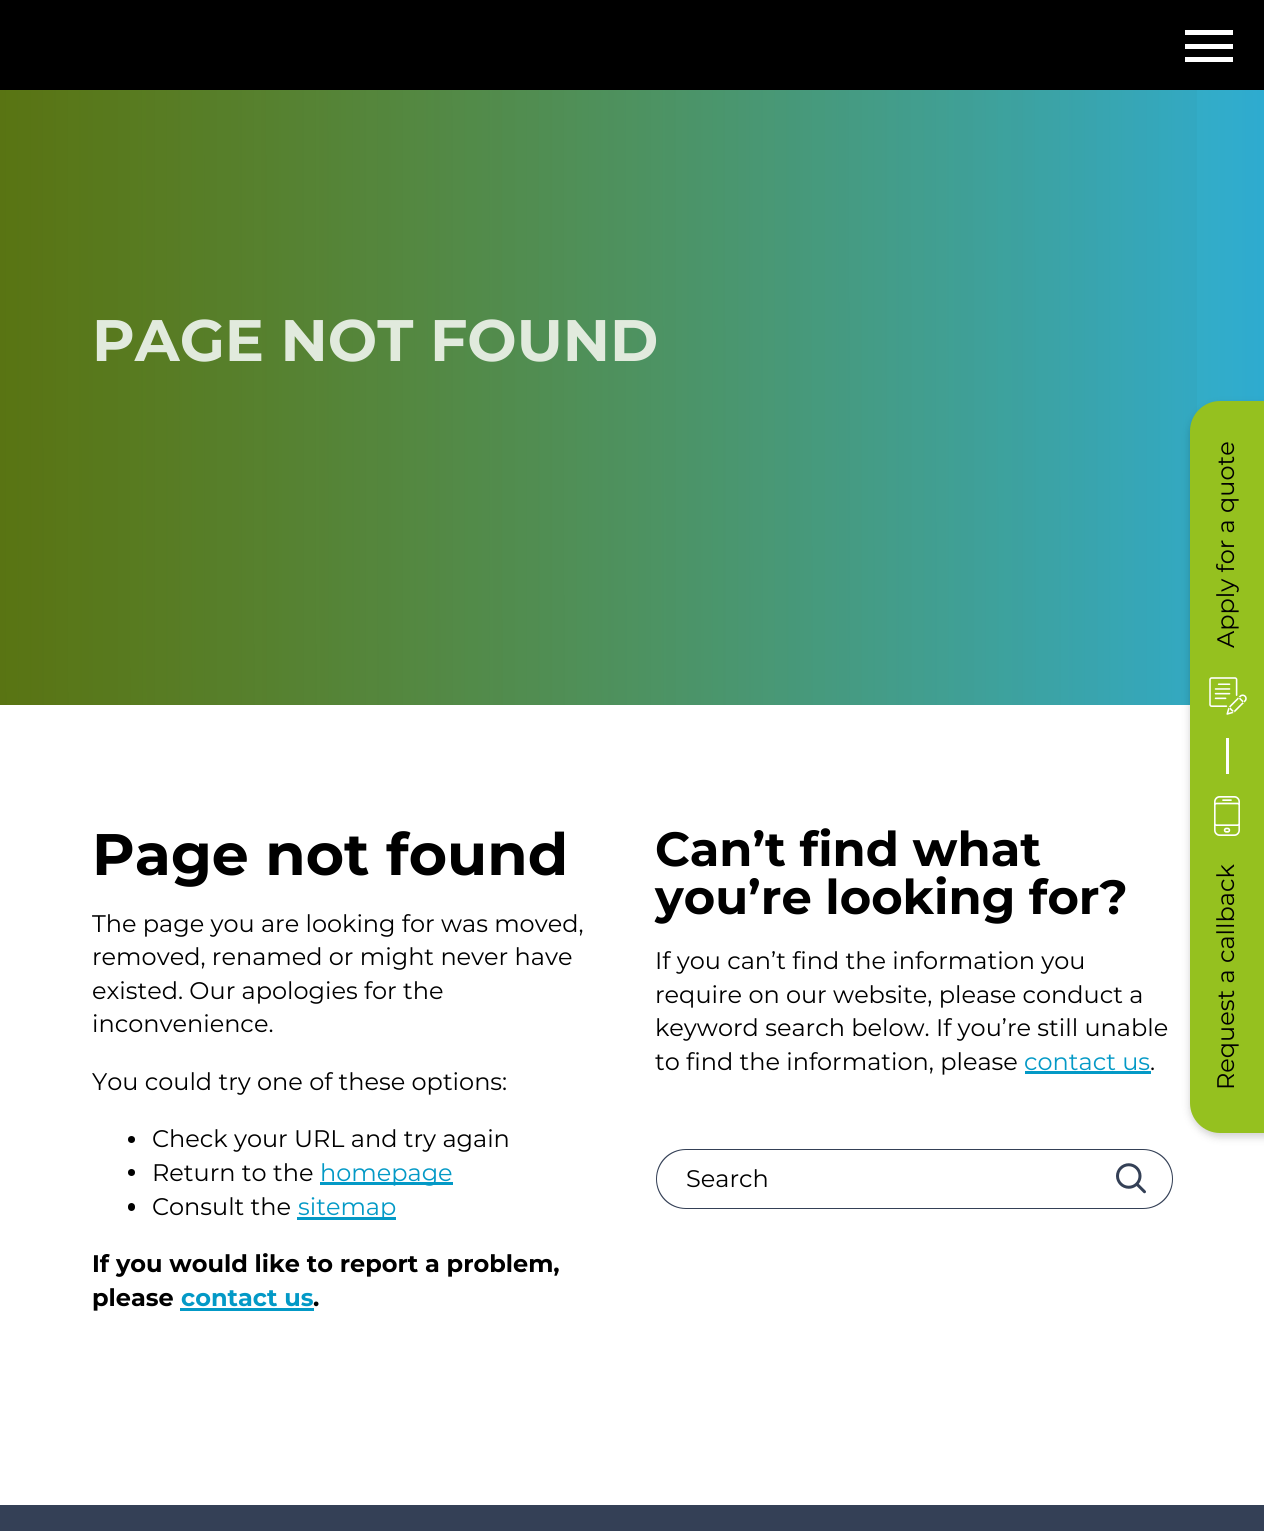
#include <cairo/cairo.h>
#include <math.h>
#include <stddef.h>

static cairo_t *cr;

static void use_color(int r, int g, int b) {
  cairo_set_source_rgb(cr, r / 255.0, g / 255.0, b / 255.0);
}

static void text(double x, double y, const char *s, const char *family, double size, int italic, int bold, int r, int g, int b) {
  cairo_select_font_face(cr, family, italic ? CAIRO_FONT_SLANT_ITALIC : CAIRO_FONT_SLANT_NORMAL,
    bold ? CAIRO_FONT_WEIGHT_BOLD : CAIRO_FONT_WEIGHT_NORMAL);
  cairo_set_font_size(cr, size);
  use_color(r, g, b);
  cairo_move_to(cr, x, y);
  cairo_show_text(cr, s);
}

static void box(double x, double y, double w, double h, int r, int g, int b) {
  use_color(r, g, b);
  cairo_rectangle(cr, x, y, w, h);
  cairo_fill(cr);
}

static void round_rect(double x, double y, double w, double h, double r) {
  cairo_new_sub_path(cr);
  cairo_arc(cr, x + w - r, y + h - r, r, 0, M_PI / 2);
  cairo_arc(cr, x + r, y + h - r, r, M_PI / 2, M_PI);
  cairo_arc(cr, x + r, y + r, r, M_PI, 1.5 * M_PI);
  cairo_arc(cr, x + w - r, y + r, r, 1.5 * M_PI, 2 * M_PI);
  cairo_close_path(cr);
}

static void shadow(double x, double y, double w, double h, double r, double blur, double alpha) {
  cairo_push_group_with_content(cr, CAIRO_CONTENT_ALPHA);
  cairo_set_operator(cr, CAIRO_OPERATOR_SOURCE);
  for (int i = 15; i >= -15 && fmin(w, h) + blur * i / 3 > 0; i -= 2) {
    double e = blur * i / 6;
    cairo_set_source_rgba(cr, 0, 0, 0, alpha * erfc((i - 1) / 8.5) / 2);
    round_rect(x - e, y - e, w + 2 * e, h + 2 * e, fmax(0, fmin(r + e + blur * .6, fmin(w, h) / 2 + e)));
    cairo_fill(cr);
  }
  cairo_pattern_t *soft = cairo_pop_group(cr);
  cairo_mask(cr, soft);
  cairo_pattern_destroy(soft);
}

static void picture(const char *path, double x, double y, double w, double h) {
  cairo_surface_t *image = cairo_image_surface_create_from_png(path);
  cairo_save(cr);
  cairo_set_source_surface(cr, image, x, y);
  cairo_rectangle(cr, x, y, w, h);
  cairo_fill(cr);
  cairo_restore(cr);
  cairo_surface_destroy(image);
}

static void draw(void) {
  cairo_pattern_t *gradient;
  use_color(255, 255, 255);
  cairo_paint(cr);
  box(0, 0, 1264, 90, 0, 0, 0);
  box(1185, 57, 48, 5, 255, 255, 255);
  box(1185, 30, 48, 5, 255, 255, 255);
  box(1185, 44, 48, 5, 255, 255, 255);
  gradient = cairo_pattern_create_linear(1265, 352, 0, 353);
  cairo_pattern_add_color_stop_rgba(gradient, 0, 0.18, 0.671, 0.816, 1);
  cairo_pattern_add_color_stop_rgba(gradient, 1, 0.58, 0.757, 0.122, 1);
  cairo_set_source(cr, gradient);
  cairo_pattern_destroy(gradient);
  cairo_rectangle(cr, 0, 90, 1264, 615);
  cairo_fill(cr);
  gradient = cairo_pattern_create_linear(0, 353, 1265, 352);
  cairo_pattern_add_color_stop_rgba(gradient, 0, 0, 0, 0, 0.4);
  cairo_pattern_add_color_stop_rgba(gradient, 1, 0, 0, 0, 0);
  cairo_set_source(cr, gradient);
  cairo_pattern_destroy(gradient);
  cairo_rectangle(cr, 0, 90, 1197, 615);
  cairo_fill(cr);
  use_color(0, 0, 0);
  cairo_arc(cr, 131.5, 1139.5, 3.5, 0, 2 * M_PI);
  cairo_fill(cr);
  cairo_arc(cr, 131.5, 1172.5, 3.5, 0, 2 * M_PI);
  cairo_fill(cr);
  box(320, 1182, 133, 3, 3, 153, 198);
  use_color(0, 0, 0);
  round_rect(128, 1203, 7, 8, 3.5);
  cairo_fill(cr);
  box(297, 1217, 99, 3, 3, 153, 198);
  box(180, 1308, 134, 3, 3, 153, 198);
  box(1025, 1071, 126, 3, 3, 153, 198);
  use_color(52, 64, 86);
  cairo_set_fill_rule(cr, CAIRO_FILL_RULE_EVEN_ODD);
  cairo_new_path(cr);
  cairo_move_to(cr, 686, 1149);
  cairo_line_to(cr, 1090, 1149);
  cairo_line_to(cr, 1090, 1209);
  cairo_line_to(cr, 686, 1209);
  cairo_curve_to(cr, 669, 1209, 656, 1196, 656, 1179);
  cairo_curve_to(cr, 656, 1162, 669, 1149, 686, 1149);
  cairo_close_path(cr);
  cairo_move_to(cr, 686, 1150);
  cairo_line_to(cr, 1090, 1150);
  cairo_line_to(cr, 1090, 1208);
  cairo_line_to(cr, 686, 1208);
  cairo_curve_to(cr, 670, 1208, 657, 1195, 657, 1179);
  cairo_curve_to(cr, 657, 1163, 670, 1150, 686, 1150);
  cairo_close_path(cr);
  cairo_fill(cr);
  cairo_new_path(cr);
  cairo_move_to(cr, 1090, 1149);
  cairo_line_to(cr, 1143, 1149);
  cairo_curve_to(cr, 1160, 1149, 1173, 1162, 1173, 1179);
  cairo_curve_to(cr, 1173, 1196, 1160, 1209, 1143, 1209);
  cairo_line_to(cr, 1090, 1209);
  cairo_close_path(cr);
  cairo_move_to(cr, 1090, 1150);
  cairo_line_to(cr, 1143, 1150);
  cairo_curve_to(cr, 1159, 1150, 1172, 1163, 1172, 1179);
  cairo_curve_to(cr, 1172, 1195, 1159, 1208, 1143, 1208);
  cairo_line_to(cr, 1090, 1208);
  cairo_close_path(cr);
  cairo_fill(cr);
  picture("img_01.png", 1116, 1163, 30, 31);
  use_color(0, 0, 0);
  shadow(1190, 405, 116, 732, 30, 4, 0.18);
  use_color(149, 193, 31);
  cairo_new_path(cr);
  cairo_move_to(cr, 1220, 401);
  cairo_line_to(cr, 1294, 401);
  cairo_line_to(cr, 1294, 1133);
  cairo_line_to(cr, 1220, 1133);
  cairo_curve_to(cr, 1203.5, 1133, 1190, 1119.5, 1190, 1103);
  cairo_line_to(cr, 1190, 431);
  cairo_curve_to(cr, 1190, 414.5, 1203.5, 401, 1220, 401);
  cairo_close_path(cr);
  cairo_fill(cr);
  picture("img_02.png", 1209, 677, 38, 38);
  box(1226, 738, 3, 36, 255, 255, 255);
  picture("img_03.png", 1214, 796, 26, 40);
  box(0, 1505, 1264, 26, 52, 64, 86);
  text(92, 361, "PAGE NOT FOUND", "Montserrat", 58.5, 0, 1, 225, 234, 221);
  text(92, 875, "Page not found", "Montserrat", 58.5, 0, 1, 0, 0, 0);
  text(92, 932, "The page you are looking for was moved,", "Montserrat", 24, 0, 0, 0, 0, 0);
  text(92, 965, "removed, renamed or might never have", "Montserrat", 24, 0, 0, 0, 0, 0);
  text(92, 999, "existed. Our apologies for the", "Montserrat", 24, 0, 0, 0, 0, 0);
  text(92, 1032, "inconvenience.", "Montserrat", 24, 0, 0, 0, 0, 0);
  text(92, 1090, "You could try one of these options:", "Montserrat", 24, 0, 0, 0, 0, 0);
  text(152, 1147, "Check your URL and try again", "Montserrat", 24, 0, 0, 0, 0, 0);
  text(152, 1181, "Return to the", "Montserrat", 24, 0, 0, 0, 0, 0);
  text(320, 1181, "homepage", "Montserrat", 24, 0, 0, 3, 153, 198);
  text(152, 1215, "Consult the", "Montserrat", 24, 0, 0, 0, 0, 0);
  text(298, 1215, "sitemap", "Montserrat", 24, 0, 0, 3, 153, 198);
  text(92, 1272, "If you would like to report a problem,", "Montserrat", 24, 0, 1, 0, 0, 0);
  text(92, 1306, "please", "Montserrat", 24, 0, 1, 0, 0, 0);
  text(181, 1306, "contact us", "Montserrat", 24, 0, 1, 3, 153, 198);
  text(313, 1306, ".", "Montserrat", 24, 0, 1, 0, 0, 0);
  text(655, 866, "Can’t find what", "Montserrat", 48, 0, 1, 0, 0, 0);
  text(655, 914, "you’re looking for?", "Montserrat", 48, 0, 1, 0, 0, 0);
  text(655, 969, "If you can’t find the information you", "Montserrat", 24, 0, 0, 0, 0, 0);
  text(655, 1003, "require on our website, please conduct a", "Montserrat", 24, 0, 0, 0, 0, 0);
  text(655, 1036, "keyword search below. If you’re still unable", "Montserrat", 24, 0, 0, 0, 0, 0);
  text(655, 1070, "to find the information, please", "Montserrat", 24, 0, 0, 0, 0, 0);
  text(1024, 1070, "contact us", "Montserrat", 24, 0, 0, 3, 153, 198);
  text(1150, 1070, ".", "Montserrat", 24, 0, 0, 0, 0, 0);
  text(686, 1187, "Search", "Montserrat", 24, 0, 0, 0, 0, 0);
  cairo_save(cr);
  cairo_translate(cr, 1234, 648);
  cairo_rotate(cr, -90 * M_PI / 180);
  text(0, 0, "Apply for a quote", "Montserrat", 24, 0, 0, 0, 0, 0);
  cairo_restore(cr);
  cairo_save(cr);
  cairo_translate(cr, 1234, 1090);
  cairo_rotate(cr, -90 * M_PI / 180);
  text(0, 0, "Request a callback", "Montserrat", 24, 0, 0, 0, 0, 0);
  cairo_restore(cr);
}

int main(void) {
  cairo_surface_t *surface = cairo_image_surface_create(CAIRO_FORMAT_RGB24, 1264, 1531);
  cr = cairo_create(surface);
  cairo_font_options_t *options = cairo_font_options_create();
  cairo_font_options_set_hint_metrics(options, CAIRO_HINT_METRICS_OFF);
  cairo_font_options_set_hint_style(options, CAIRO_HINT_STYLE_NONE);
  cairo_set_font_options(cr, options);
  cairo_set_miter_limit(cr, 4);
  draw();
  cairo_surface_write_to_png(surface, "out.png");
  cairo_font_options_destroy(options);
  cairo_destroy(cr);
  cairo_surface_destroy(surface);
  return 0;
}
